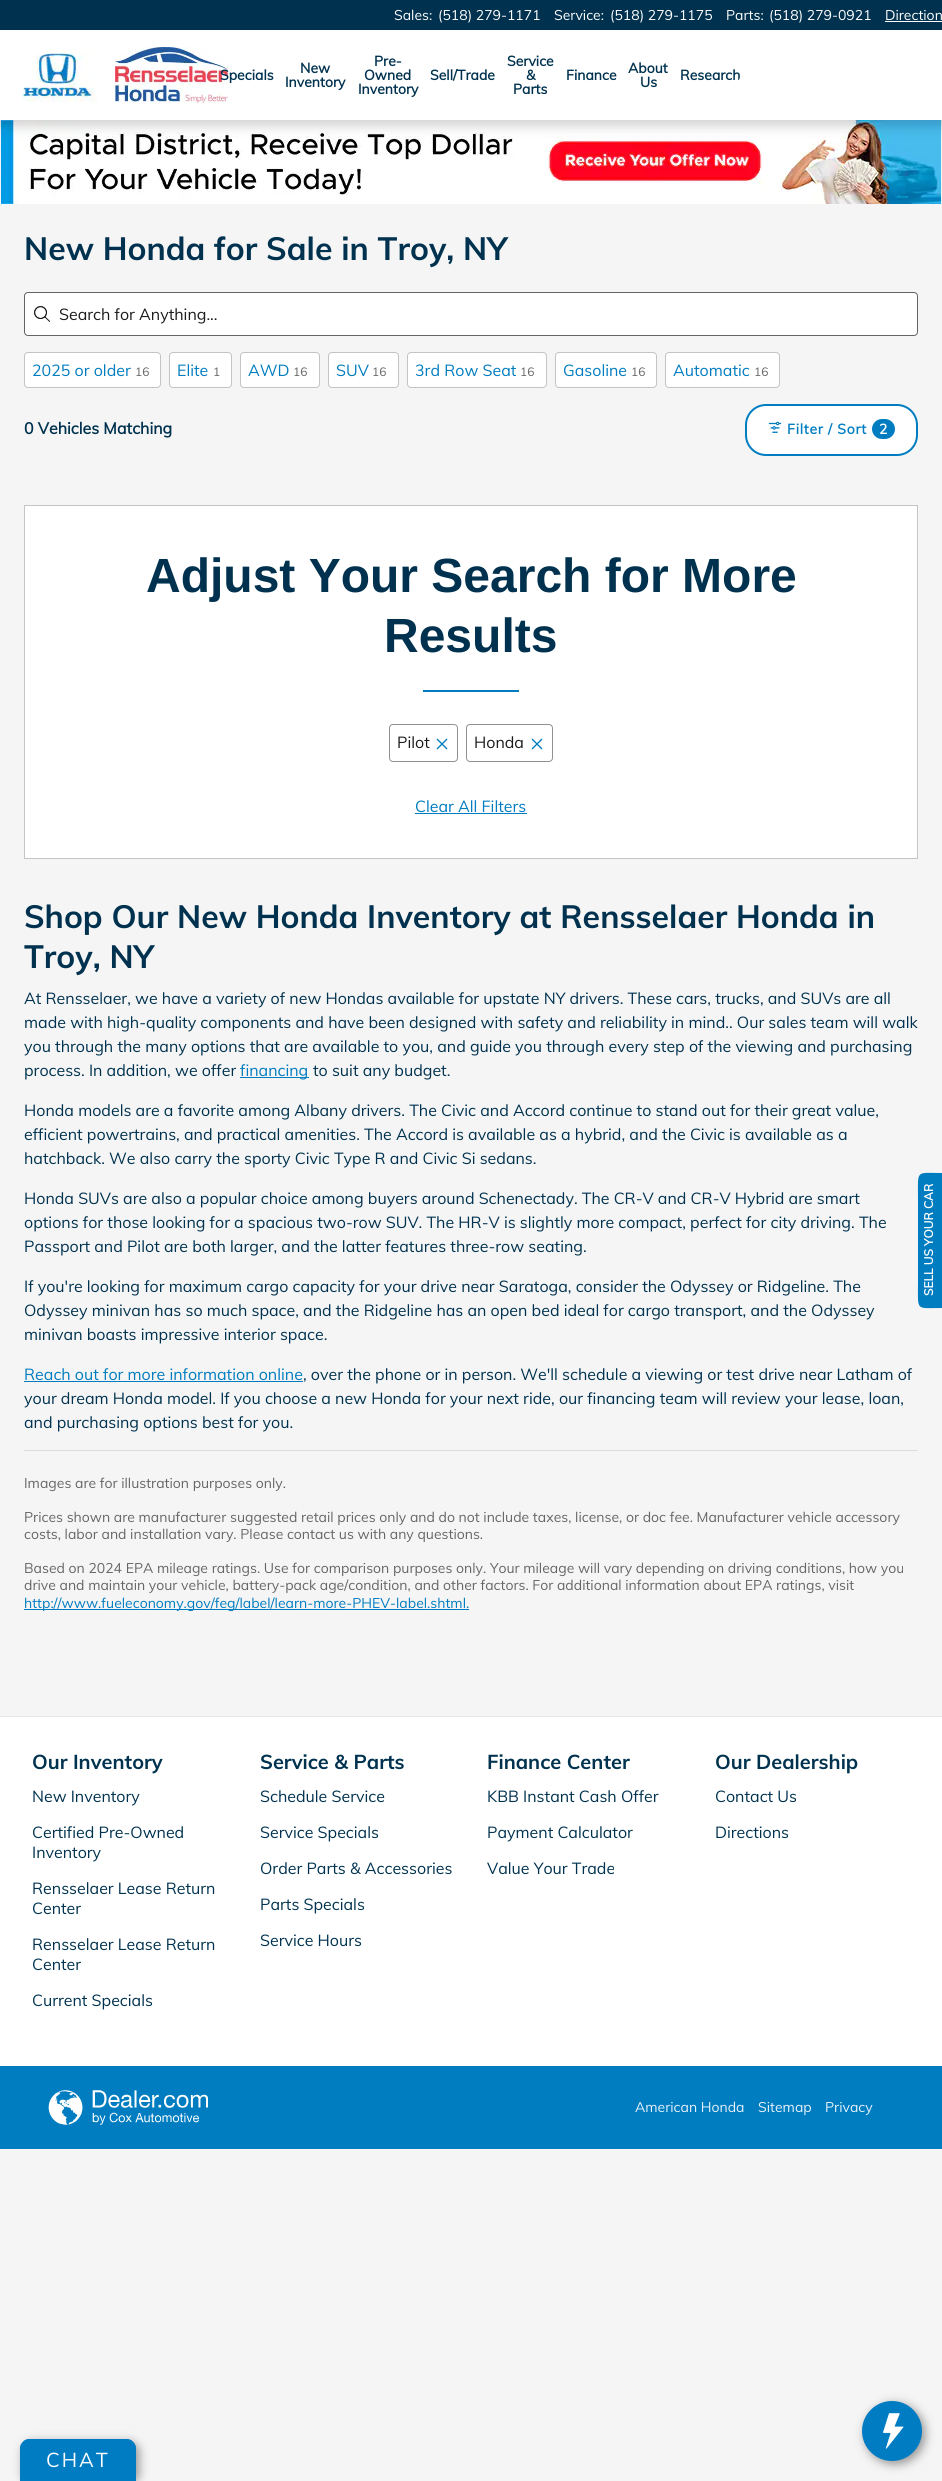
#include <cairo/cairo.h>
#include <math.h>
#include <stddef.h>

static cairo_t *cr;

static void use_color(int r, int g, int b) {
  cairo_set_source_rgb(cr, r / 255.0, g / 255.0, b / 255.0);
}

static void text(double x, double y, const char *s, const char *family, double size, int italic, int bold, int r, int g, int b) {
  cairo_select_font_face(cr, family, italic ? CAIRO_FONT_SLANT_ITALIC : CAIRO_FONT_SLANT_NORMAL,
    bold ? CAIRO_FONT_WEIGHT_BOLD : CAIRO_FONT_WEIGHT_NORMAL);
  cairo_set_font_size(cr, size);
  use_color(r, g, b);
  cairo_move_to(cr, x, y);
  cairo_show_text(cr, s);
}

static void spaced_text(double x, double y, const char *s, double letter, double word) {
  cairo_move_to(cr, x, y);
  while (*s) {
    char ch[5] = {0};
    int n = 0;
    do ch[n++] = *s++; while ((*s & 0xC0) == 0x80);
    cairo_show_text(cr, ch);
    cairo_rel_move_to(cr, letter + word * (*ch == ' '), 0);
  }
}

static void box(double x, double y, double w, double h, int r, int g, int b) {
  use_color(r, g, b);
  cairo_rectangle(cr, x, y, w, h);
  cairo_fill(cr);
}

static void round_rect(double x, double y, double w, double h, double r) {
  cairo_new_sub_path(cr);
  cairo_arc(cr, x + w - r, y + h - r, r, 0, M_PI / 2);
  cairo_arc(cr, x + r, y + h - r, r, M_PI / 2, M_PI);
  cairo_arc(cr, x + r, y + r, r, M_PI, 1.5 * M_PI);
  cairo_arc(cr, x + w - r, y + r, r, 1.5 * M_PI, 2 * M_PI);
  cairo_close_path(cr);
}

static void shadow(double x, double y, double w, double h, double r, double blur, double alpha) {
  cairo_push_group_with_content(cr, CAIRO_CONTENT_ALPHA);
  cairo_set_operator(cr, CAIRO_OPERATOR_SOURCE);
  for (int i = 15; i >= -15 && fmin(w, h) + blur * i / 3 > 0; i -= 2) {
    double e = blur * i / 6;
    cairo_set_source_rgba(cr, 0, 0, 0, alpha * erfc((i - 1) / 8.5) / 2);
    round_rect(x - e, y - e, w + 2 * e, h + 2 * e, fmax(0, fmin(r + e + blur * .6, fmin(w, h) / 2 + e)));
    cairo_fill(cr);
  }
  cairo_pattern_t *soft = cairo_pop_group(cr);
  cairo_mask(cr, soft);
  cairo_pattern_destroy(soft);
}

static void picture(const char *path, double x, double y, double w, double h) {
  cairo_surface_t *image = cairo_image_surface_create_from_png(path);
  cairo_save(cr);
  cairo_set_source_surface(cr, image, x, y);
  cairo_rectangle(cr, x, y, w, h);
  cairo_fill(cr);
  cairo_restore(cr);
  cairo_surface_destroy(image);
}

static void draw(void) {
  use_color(245, 245, 245);
  cairo_paint(cr);
  picture("img_04.png", 1, 120, 940, 84);
  use_color(0, 0, 0);
  shadow(0, 6, 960, 120, 0, 6, 0.18);
  box(0, 30, 942, 90, 255, 255, 255);
  box(0, 0, 942, 30, 0, 50, 79);
  box(885, 21, 57, 1, 255, 255, 255);
  picture("img_01.png", 22, 49, 76, 54);
  picture("img_02.png", 115, 47, 113, 56);
  round_rect(24.5, 292.5, 893, 43, 3.5);
  cairo_fill_preserve(cr);
  use_color(100, 100, 100);
  cairo_set_line_width(cr, 1);
  cairo_stroke(cr);
  picture("img_05.png", 34, 306, 16, 16);
  use_color(255, 255, 255);
  round_rect(24.5, 352.5, 136, 35, 3.5);
  cairo_fill_preserve(cr);
  use_color(196, 196, 196);
  cairo_stroke(cr);
  use_color(255, 255, 255);
  round_rect(169.5, 352.5, 62, 35, 3.5);
  cairo_fill_preserve(cr);
  use_color(196, 196, 196);
  cairo_stroke(cr);
  use_color(255, 255, 255);
  round_rect(240.5, 352.5, 79, 35, 3.5);
  cairo_fill_preserve(cr);
  use_color(196, 196, 196);
  cairo_stroke(cr);
  use_color(255, 255, 255);
  round_rect(328.5, 352.5, 70, 35, 3.5);
  cairo_fill_preserve(cr);
  use_color(196, 196, 196);
  cairo_stroke(cr);
  use_color(255, 255, 255);
  round_rect(407.5, 352.5, 139, 35, 3.5);
  cairo_fill_preserve(cr);
  use_color(196, 196, 196);
  cairo_stroke(cr);
  use_color(255, 255, 255);
  round_rect(555.5, 352.5, 101, 35, 3.5);
  cairo_fill_preserve(cr);
  use_color(196, 196, 196);
  cairo_stroke(cr);
  use_color(255, 255, 255);
  round_rect(665.5, 352.5, 114, 35, 3.5);
  cairo_fill_preserve(cr);
  use_color(196, 196, 196);
  cairo_stroke(cr);
  use_color(255, 255, 255);
  round_rect(746, 405, 171, 50, 20);
  cairo_fill_preserve(cr);
  use_color(0, 124, 192);
  cairo_set_line_width(cr, 2);
  cairo_stroke(cr);
  picture("img_06.png", 768, 421, 14, 12);
  round_rect(872, 419, 23, 20, 10);
  cairo_fill(cr);
  use_color(255, 255, 255);
  cairo_rectangle(cr, 24.5, 505.5, 893, 353);
  cairo_fill_preserve(cr);
  use_color(196, 196, 196);
  cairo_set_line_width(cr, 1);
  cairo_stroke(cr);
  box(423, 690, 96, 2, 0, 124, 192);
  round_rect(389.5, 724.5, 68, 37, 3.5);
  use_color(145, 145, 145);
  cairo_stroke(cr);
  picture("img_07.png", 436, 738, 12, 12);
  round_rect(466.5, 724.5, 86, 37, 3.5);
  cairo_stroke(cr);
  picture("img_07.png", 531, 738, 12, 12);
  box(415, 813, 112, 1, 0, 124, 192);
  box(240, 1077, 69, 1, 0, 124, 192);
  box(24, 1381, 279, 1, 0, 124, 192);
  box(24, 1450, 894, 1, 221, 221, 221);
  box(24, 1609, 445, 1, 0, 124, 192);
  cairo_new_path(cr);
  cairo_move_to(cr, 942, 1308);
  cairo_curve_to(cr, 915, 1308, 918, 1312, 918, 1281);
  cairo_line_to(cr, 918, 1200);
  cairo_curve_to(cr, 918, 1169, 915, 1173, 942, 1173);
  cairo_close_path(cr);
  cairo_fill(cr);
  box(0, 1717, 942, 349, 255, 255, 255);
  box(0, 1716, 942, 1, 230, 230, 230);
  box(0, 2066, 942, 83, 0, 124, 192);
  picture("img_08.png", 48, 2090, 160, 35);
  use_color(0, 0, 0);
  shadow(23, 2442, 116, 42, 10, 5, 0.4);
  use_color(0, 124, 195);
  cairo_new_path(cr);
  cairo_move_to(cr, 30, 2439);
  cairo_line_to(cr, 126, 2439);
  cairo_curve_to(cr, 131.5, 2439, 136, 2443.5, 136, 2449);
  cairo_line_to(cr, 136, 2481);
  cairo_line_to(cr, 20, 2481);
  cairo_line_to(cr, 20, 2449);
  cairo_curve_to(cr, 20, 2443.5, 24.5, 2439, 30, 2439);
  cairo_close_path(cr);
  cairo_fill(cr);
  cairo_new_path(cr);
  cairo_move_to(cr, 30, 2439);
  cairo_curve_to(cr, 27, 2439, 24, 2440, 23, 2442);
  cairo_line_to(cr, 25, 2444);
  cairo_curve_to(cr, 26, 2443, 28, 2442, 30, 2442);
  cairo_line_to(cr, 126, 2442);
  cairo_curve_to(cr, 128, 2442, 130, 2443, 131, 2444);
  cairo_line_to(cr, 133, 2442);
  cairo_curve_to(cr, 132, 2440, 129, 2439, 126, 2439);
  cairo_close_path(cr);
  cairo_fill(cr);
  cairo_new_path(cr);
  cairo_move_to(cr, 136, 2481);
  cairo_line_to(cr, 136, 2449);
  cairo_curve_to(cr, 136, 2446, 135, 2443.5, 133, 2442);
  cairo_line_to(cr, 131, 2444);
  cairo_curve_to(cr, 132, 2445, 133, 2447, 133, 2449);
  cairo_line_to(cr, 133, 2478);
  cairo_close_path(cr);
  cairo_fill(cr);
  cairo_new_path(cr);
  cairo_move_to(cr, 20, 2481);
  cairo_line_to(cr, 23, 2478);
  cairo_line_to(cr, 23, 2449);
  cairo_curve_to(cr, 23, 2447, 24, 2445, 25, 2444);
  cairo_line_to(cr, 23, 2442);
  cairo_curve_to(cr, 21, 2443.5, 20, 2446, 20, 2449);
  cairo_close_path(cr);
  cairo_fill(cr);
  use_color(0, 0, 0);
  shadow(865, 2404, 60, 60, 30, 5, 0.4);
  use_color(0, 124, 195);
  cairo_arc(cr, 892, 2431, 30, 0, 2 * M_PI);
  cairo_fill(cr);
  picture("img_09.png", 883, 2413, 21, 36);
  text(394, 20, "Sales:", "Muli", 14, 0, 0, 255, 255, 255);
  text(438, 20, "(518) 279-1171", "Muli", 14, 0, 0, 255, 255, 255);
  text(554, 20, "Service:", "Muli", 14, 0, 0, 255, 255, 255);
  text(610, 20, "(518) 279-1175", "Muli", 14, 0, 0, 255, 255, 255);
  text(726, 20, "Parts:", "Muli", 14, 0, 0, 255, 255, 255);
  text(769, 20, "(518) 279-0921", "Muli", 14, 0, 0, 255, 255, 255);
  text(885, 20, "Direction", "Muli", 14, 0, 0, 255, 255, 255);
  text(220, 80, "Specials", "Muli", 14, 0, 1, 0, 50, 79);
  text(300, 73, "New", "Muli", 14, 0, 1, 0, 50, 79);
  text(285, 87, "Inventory", "Muli", 14, 0, 1, 0, 50, 79);
  text(374, 66, "Pre-", "Muli", 14, 0, 1, 0, 50, 79);
  text(364, 80, "Owned", "Muli", 14, 0, 1, 0, 50, 79);
  text(358, 94, "Inventory", "Muli", 14, 0, 1, 0, 50, 79);
  text(430, 80, "Sell/Trade", "Muli", 14, 0, 1, 0, 50, 79);
  text(507, 66, "Service", "Muli", 14, 0, 1, 0, 50, 79);
  text(526, 80, "&", "Muli", 14, 0, 1, 0, 50, 79);
  text(513, 94, "Parts", "Muli", 14, 0, 1, 0, 50, 79);
  text(566, 80, "Finance", "Muli", 14, 0, 1, 0, 50, 79);
  text(628, 73, "About", "Muli", 14, 0, 1, 0, 50, 79);
  text(640, 87, "Us", "Muli", 14, 0, 1, 0, 50, 79);
  text(680, 80, "Research", "Muli", 14, 0, 1, 0, 50, 79);
  picture("img_03.png", 739, 78, 1, 2);
  text(24, 260, "New Honda for Sale in Troy, NY", "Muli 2", 32, 0, 1, 0, 50, 79);
  text(59, 320, "Search for Anything...", "Muli", 16, 0, 0, 26, 26, 26);
  text(32, 376, "2025 or older", "Muli", 16, 0, 0, 0, 124, 192);
  text(135, 376, "16", "Muli", 12, 0, 0, 102, 102, 102);
  text(177, 376, "Elite", "Muli", 16, 0, 0, 0, 124, 192);
  text(213, 376, "1", "Muli", 12, 0, 0, 102, 102, 102);
  text(248, 376, "AWD", "Muli", 16, 0, 0, 0, 124, 192);
  text(293, 376, "16", "Muli", 12, 0, 0, 102, 102, 102);
  text(336, 376, "SUV", "Muli", 16, 0, 0, 0, 124, 192);
  text(372, 376, "16", "Muli", 12, 0, 0, 102, 102, 102);
  text(415, 376, "3rd Row Seat", "Muli", 16, 0, 0, 0, 124, 192);
  text(520, 376, "16", "Muli", 12, 0, 0, 102, 102, 102);
  text(563, 376, "Gasoline", "Muli", 16, 0, 0, 0, 124, 192);
  text(631, 376, "16", "Muli", 12, 0, 0, 102, 102, 102);
  text(673, 376, "Automatic", "Muli", 16, 0, 0, 0, 124, 192);
  text(754, 376, "16", "Muli", 12, 0, 0, 102, 102, 102);
  text(24, 434, "0 Vehicles Matching", "Muli", 16, 0, 1, 0, 50, 79);
  cairo_set_font_size(cr, 14);
  use_color(0, 124, 192);
  spaced_text(787, 434, "Filter / Sort", 0.75, 0);
  use_color(255, 255, 255);
  spaced_text(879, 434, "2", 0.75, 0);
  text(146, 592, "Adjust Your Search for More", "Liberation Sans", 48, 0, 1, 0, 50, 79);
  text(384, 652, "Results", "Liberation Sans", 48, 0, 1, 0, 50, 79);
  text(397, 748, "Pilot", "Muli", 16, 0, 0, 26, 26, 26);
  text(474, 748, "Honda", "Muli", 16, 0, 0, 26, 26, 26);
  text(415, 812, "Clear All Filters", "Muli", 16, 0, 0, 0, 124, 192);
  text(24, 928, "Shop Our New Honda Inventory at Rensselaer Honda in", "Muli 2", 32, 0, 1, 0, 50, 79);
  text(24, 968, "Troy, NY", "Muli 2", 32, 0, 1, 0, 50, 79);
  text(24, 1004, "At Rensselaer, we have a variety of new Hondas available for upstate NY drivers. These cars, trucks, and SUVs are all", "Muli", 16, 0, 0, 0, 50, 79);
  text(24, 1028, "made with high-quality components and have been designed with safety and reliability in mind.. Our sales team will walk", "Muli", 16, 0, 0, 0, 50, 79);
  text(24, 1052, "you through the many options that are available to you, and guide you through every step of the viewing and purchasing", "Muli", 16, 0, 0, 0, 50, 79);
  text(24, 1076, "process. In addition, we offer", "Muli", 16, 0, 0, 0, 50, 79);
  text(240, 1076, "financing", "Muli", 16, 0, 0, 0, 124, 192);
  text(313, 1076, "to suit any budget.", "Muli", 16, 0, 0, 0, 50, 79);
  text(24, 1116, "Honda models are a favorite among Albany drivers. The Civic and Accord continue to stand out for their great value,", "Muli", 16, 0, 0, 0, 50, 79);
  text(24, 1140, "efficient powertrains, and practical amenities. The Accord is available as a hybrid, and the Civic is available as a", "Muli", 16, 0, 0, 0, 50, 79);
  text(24, 1164, "hatchback. We also carry the sporty Civic Type R and Civic Si sedans.", "Muli", 16, 0, 0, 0, 50, 79);
  text(24, 1204, "Honda SUVs are also a popular choice among buyers around Schenectady. The CR-V and CR-V Hybrid are smart", "Muli", 16, 0, 0, 0, 50, 79);
  text(24, 1228, "options for those looking for a spacious two-row SUV. The HR-V is slightly more compact, perfect for city driving. The", "Muli", 16, 0, 0, 0, 50, 79);
  text(24, 1252, "Passport and Pilot are both larger, and the latter features three-row seating.", "Muli", 16, 0, 0, 0, 50, 79);
  text(24, 1292, "If you're looking for maximum cargo capacity for your drive near Saratoga, consider the Odyssey or Ridgeline. The", "Muli", 16, 0, 0, 0, 50, 79);
  text(24, 1316, "Odyssey minivan has so much space, and the Ridgeline has an open bed ideal for cargo transport, and the Odyssey", "Muli", 16, 0, 0, 0, 50, 79);
  text(24, 1340, "minivan boasts impressive interior space.", "Muli", 16, 0, 0, 0, 50, 79);
  text(24, 1380, "Reach out for more information online", "Muli", 16, 0, 0, 0, 124, 192);
  text(303, 1380, ", over the phone or in person. We'll schedule a viewing or test drive near Latham of", "Muli", 16, 0, 0, 0, 50, 79);
  text(24, 1404, "your dream Honda model. If you choose a new Honda for your next ride, our financing team will review your lease, loan,", "Muli", 16, 0, 0, 0, 50, 79);
  text(24, 1428, "and purchasing options best for you.", "Muli", 16, 0, 0, 0, 50, 79);
  text(24, 1488, "Images are for illustration purposes only.", "Muli", 14, 0, 0, 102, 102, 102);
  text(24, 1522, "Prices shown are manufacturer suggested retail prices only and do not include taxes, license, or doc fee. Manufacturer vehicle accessory", "Muli", 14, 0, 0, 102, 102, 102);
  text(24, 1539, "costs, labor and installation vary. Please contact us with any questions.", "Muli", 14, 0, 0, 102, 102, 102);
  text(24, 1573, "Based on 2024 EPA mileage ratings. Use for comparison purposes only. Your mileage will vary depending on driving conditions, how you", "Muli", 14, 0, 0, 102, 102, 102);
  text(24, 1590, "drive and maintain your vehicle, battery-pack age/condition, and other factors. For additional information about EPA ratings, visit", "Muli", 14, 0, 0, 102, 102, 102);
  text(24, 1608, "http://www.fueleconomy.gov/feg/label/learn-more-PHEV-label.shtml.", "Muli", 14, 0, 0, 0, 124, 192);
  cairo_save(cr);
  cairo_translate(cr, 933, 1296);
  cairo_rotate(cr, -90 * M_PI / 180);
  text(0, 0, "SELL US YOUR CAR", "Muli", 12, 0, 1, 255, 255, 255);
  cairo_restore(cr);
  text(32, 1769, "Our Inventory", "Muli 2", 20, 0, 1, 0, 50, 79);
  text(32, 1802, "New Inventory", "Muli", 16, 0, 0, 0, 50, 79);
  text(32, 1838, "Certified Pre-Owned", "Muli", 16, 0, 0, 0, 50, 79);
  text(32, 1858, "Inventory", "Muli", 16, 0, 0, 0, 50, 79);
  text(32, 1894, "Rensselaer Lease Return", "Muli", 16, 0, 0, 0, 50, 79);
  text(32, 1914, "Center", "Muli", 16, 0, 0, 0, 50, 79);
  text(32, 1950, "Rensselaer Lease Return", "Muli", 16, 0, 0, 0, 50, 79);
  text(32, 1970, "Center", "Muli", 16, 0, 0, 0, 50, 79);
  text(32, 2006, "Current Specials", "Muli", 16, 0, 0, 0, 50, 79);
  text(260, 1769, "Service & Parts", "Muli 2", 20, 0, 1, 0, 50, 79);
  text(260, 1802, "Schedule Service", "Muli", 16, 0, 0, 0, 50, 79);
  text(260, 1838, "Service Specials", "Muli", 16, 0, 0, 0, 50, 79);
  text(260, 1874, "Order Parts & Accessories", "Muli", 16, 0, 0, 0, 50, 79);
  text(260, 1910, "Parts Specials", "Muli", 16, 0, 0, 0, 50, 79);
  text(260, 1946, "Service Hours", "Muli", 16, 0, 0, 0, 50, 79);
  text(487, 1769, "Finance Center", "Muli 2", 20, 0, 1, 0, 50, 79);
  text(487, 1802, "KBB Instant Cash Offer", "Muli", 16, 0, 0, 0, 50, 79);
  text(487, 1838, "Payment Calculator", "Muli", 16, 0, 0, 0, 50, 79);
  text(487, 1874, "Value Your Trade", "Muli", 16, 0, 0, 0, 50, 79);
  text(715, 1769, "Our Dealership", "Muli 2", 20, 0, 1, 0, 50, 79);
  text(715, 1802, "Contact Us", "Muli", 16, 0, 0, 0, 50, 79);
  text(715, 1838, "Directions", "Muli", 16, 0, 0, 0, 50, 79);
  text(635, 2112, "American Honda", "Muli", 14, 0, 0, 230, 242, 249);
  text(758, 2112, "Sitemap", "Muli", 14, 0, 0, 230, 242, 249);
  text(825, 2112, "Privacy", "Muli", 14, 0, 0, 230, 242, 249);
  cairo_set_font_size(cr, 20);
  use_color(255, 255, 255);
  spaced_text(46, 2467, "CHAT", 2, 0);
}

int main(void) {
  cairo_surface_t *surface = cairo_image_surface_create(CAIRO_FORMAT_RGB24, 942, 2481);
  cr = cairo_create(surface);
  cairo_font_options_t *options = cairo_font_options_create();
  cairo_font_options_set_hint_metrics(options, CAIRO_HINT_METRICS_OFF);
  cairo_font_options_set_hint_style(options, CAIRO_HINT_STYLE_NONE);
  cairo_set_font_options(cr, options);
  cairo_set_miter_limit(cr, 4);
  draw();
  cairo_surface_write_to_png(surface, "out.png");
  cairo_font_options_destroy(options);
  cairo_destroy(cr);
  cairo_surface_destroy(surface);
  return 0;
}
